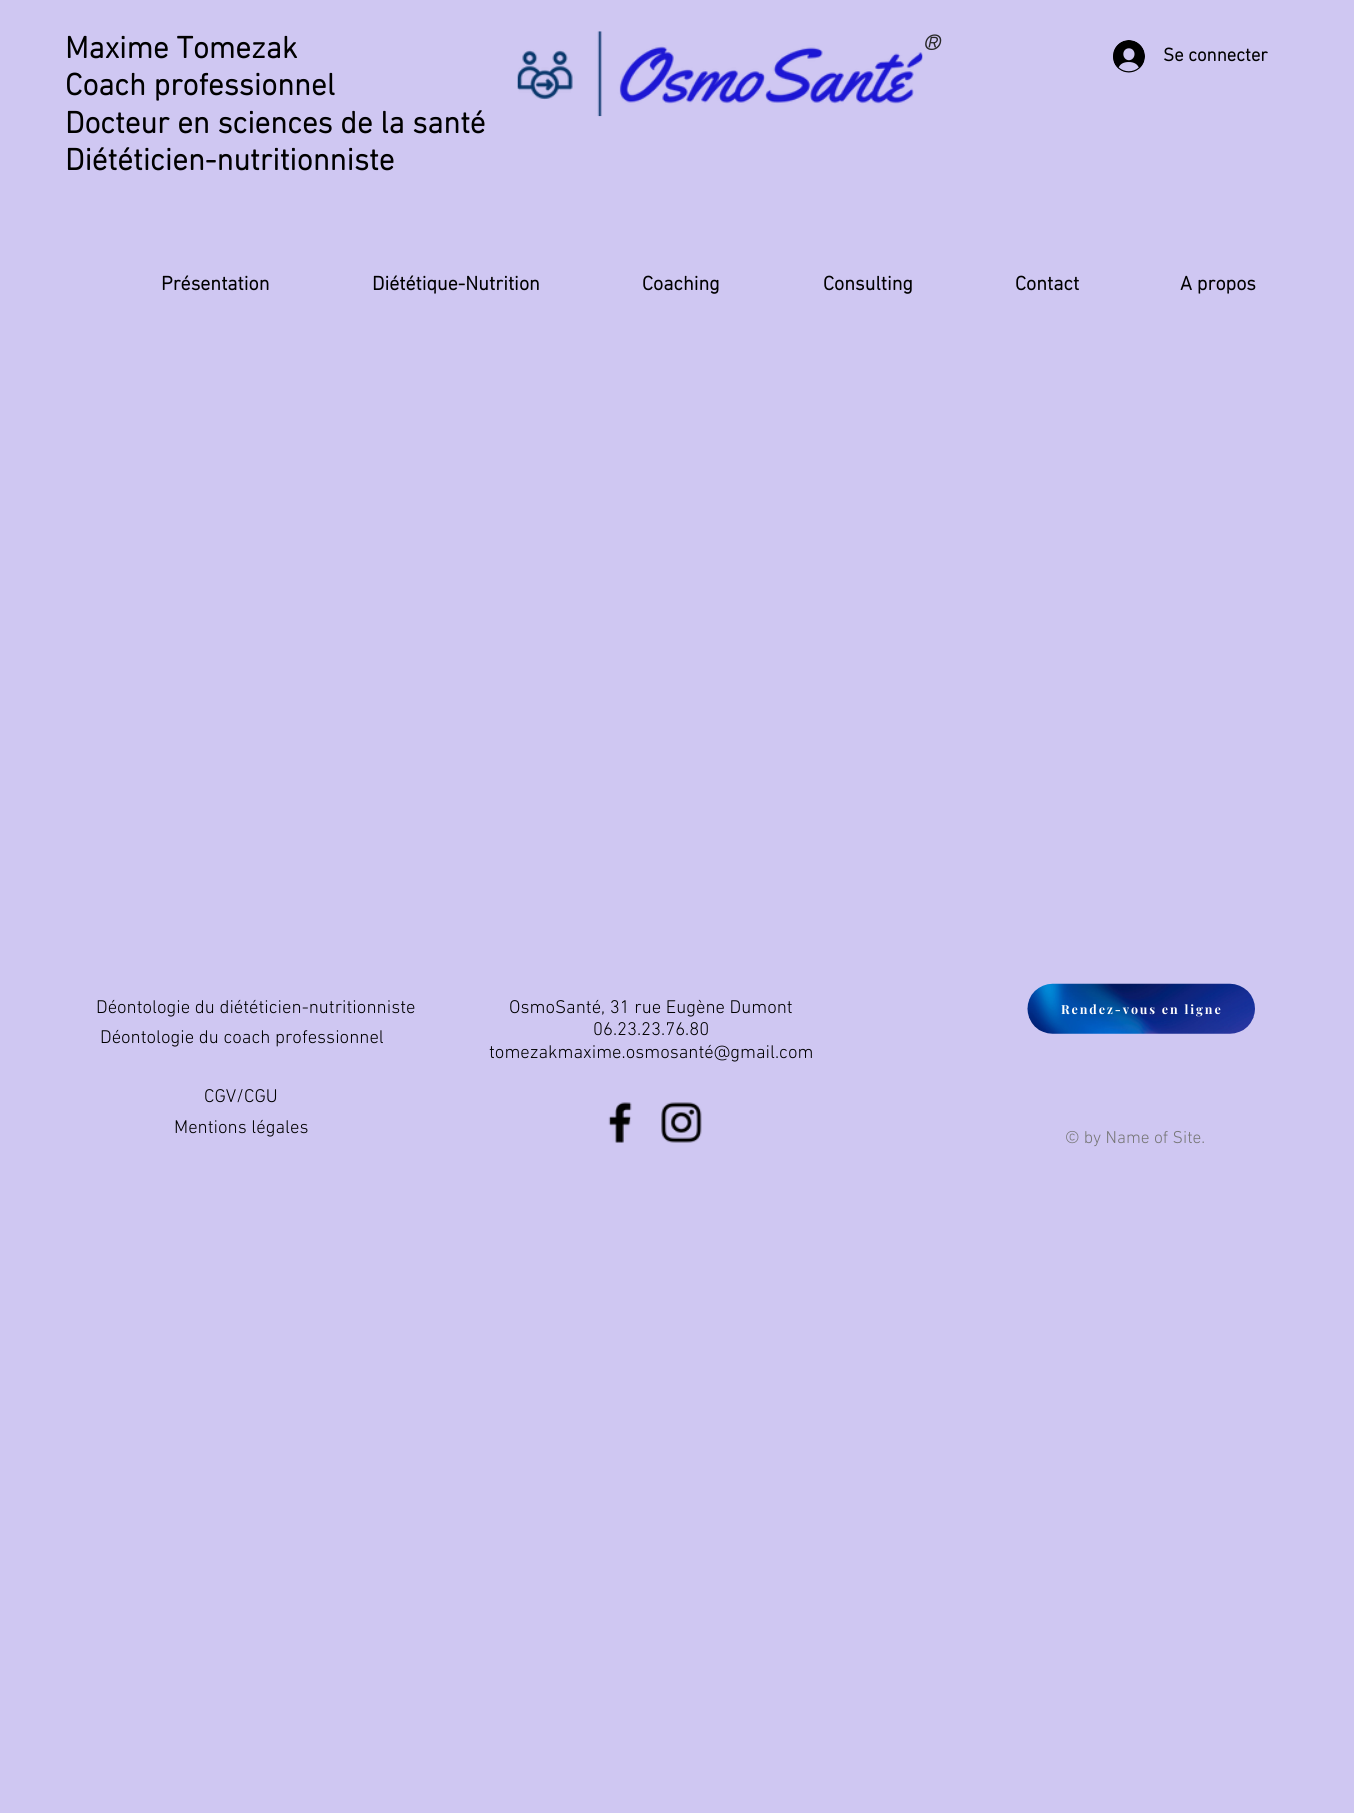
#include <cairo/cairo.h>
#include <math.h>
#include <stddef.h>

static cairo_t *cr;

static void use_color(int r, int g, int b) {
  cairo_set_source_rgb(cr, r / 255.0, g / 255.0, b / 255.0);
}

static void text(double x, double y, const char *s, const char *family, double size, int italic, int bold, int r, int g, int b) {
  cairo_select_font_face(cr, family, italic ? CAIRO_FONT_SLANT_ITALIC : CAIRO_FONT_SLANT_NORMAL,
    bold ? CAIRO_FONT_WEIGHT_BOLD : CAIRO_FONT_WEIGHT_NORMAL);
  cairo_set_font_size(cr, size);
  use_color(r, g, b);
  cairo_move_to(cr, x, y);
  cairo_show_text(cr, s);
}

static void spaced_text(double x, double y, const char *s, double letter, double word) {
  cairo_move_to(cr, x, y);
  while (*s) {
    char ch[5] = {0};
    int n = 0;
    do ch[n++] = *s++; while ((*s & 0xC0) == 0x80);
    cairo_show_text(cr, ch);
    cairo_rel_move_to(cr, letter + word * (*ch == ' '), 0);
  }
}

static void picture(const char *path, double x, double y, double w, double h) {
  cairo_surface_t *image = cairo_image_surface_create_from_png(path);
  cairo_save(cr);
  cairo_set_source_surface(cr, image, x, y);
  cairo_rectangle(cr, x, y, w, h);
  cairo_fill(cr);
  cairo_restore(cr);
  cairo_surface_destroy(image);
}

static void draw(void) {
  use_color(207, 199, 242);
  cairo_paint(cr);
  picture("img_01.png", 517, 31, 406, 86);
  picture("img_02.png", 1113, 40, 32, 33);
  picture("img_03.png", 1027, 983, 228, 51);
  picture("img_04.png", 608, 1102, 24, 41);
  picture("img_05.png", 661, 1102, 41, 41);
  text(65, 58, "Maxime Tomezak", "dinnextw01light", 31.25, 0, 1, 0, 0, 0);
  text(65, 95, "Coach professionnel", "dinnextw01light", 31.25, 0, 1, 0, 0, 0);
  text(65, 133, "Docteur en sciences de la santé", "dinnextw01light", 31.25, 0, 1, 0, 0, 0);
  text(65, 170, "Diététicien-nutritionniste", "dinnextw01light", 31.25, 0, 1, 0, 0, 0);
  cairo_select_font_face(cr, "Sail", CAIRO_FONT_SLANT_NORMAL, CAIRO_FONT_WEIGHT_BOLD);
  cairo_set_font_size(cr, 25);
  use_color(41, 41, 41);
  spaced_text(923, 50, "®", -1, 0);
  text(1163, 61, "Se connecter", "dinnextw01light", 18.75, 0, 1, 0, 0, 0);
  text(161, 290, "Présentation", "dinnextw01light", 20, 0, 1, 0, 0, 0);
  text(372, 290, "Diététique-Nutrition", "dinnextw01light", 20, 0, 1, 0, 0, 0);
  text(642, 290, "Coaching", "dinnextw01light", 20, 0, 1, 0, 0, 0);
  text(823, 290, "Consulting", "dinnextw01light", 20, 0, 1, 0, 0, 0);
  text(1015, 290, "Contact", "dinnextw01light", 20, 0, 1, 0, 0, 0);
  text(1180, 290, "A propos", "dinnextw01light", 20, 0, 1, 0, 0, 0);
  text(96, 1013, "Déontologie du diététicien-nutritionniste", "dinnextw01light Light", 18.75, 0, 0, 0, 0, 0);
  text(509, 1013, "OsmoSanté, 31 rue Eugène Dumont", "dinnextw01light Light", 18.75, 0, 0, 0, 0, 0);
  text(593, 1035, "06.23.23.76.80", "dinnextw01light Light", 18.75, 0, 0, 0, 0, 0);
  text(489, 1058, "tomezakmaxime.osmosanté@gmail.com", "dinnextw01light Light", 18.75, 0, 0, 0, 0, 0);
  cairo_select_font_face(cr, "Playfair Display", CAIRO_FONT_SLANT_NORMAL, CAIRO_FONT_WEIGHT_BOLD);
  cairo_set_font_size(cr, 12.5);
  use_color(255, 255, 255);
  spaced_text(1061, 1014, "Rendez-vous en ligne", 1.9, 0);
  text(100, 1043, "Déontologie du coach professionnel", "dinnextw01light Light", 18.75, 0, 0, 0, 0, 0);
  text(204, 1102, "CGV/CGU", "dinnextw01light Light", 18.75, 0, 0, 0, 0, 0);
  text(174, 1133, "Mentions légales", "dinnextw01light Light", 18.75, 0, 0, 0, 0, 0);
  text(1065, 1143, "© by Name of Site.", "dinnextw01light Light", 17.5, 0, 0, 118, 118, 118);
}

int main(void) {
  cairo_surface_t *surface = cairo_image_surface_create(CAIRO_FORMAT_RGB24, 1354, 1813);
  cr = cairo_create(surface);
  cairo_font_options_t *options = cairo_font_options_create();
  cairo_font_options_set_hint_metrics(options, CAIRO_HINT_METRICS_OFF);
  cairo_font_options_set_hint_style(options, CAIRO_HINT_STYLE_NONE);
  cairo_set_font_options(cr, options);
  cairo_set_miter_limit(cr, 4);
  draw();
  cairo_surface_write_to_png(surface, "out.png");
  cairo_font_options_destroy(options);
  cairo_destroy(cr);
  cairo_surface_destroy(surface);
  return 0;
}
